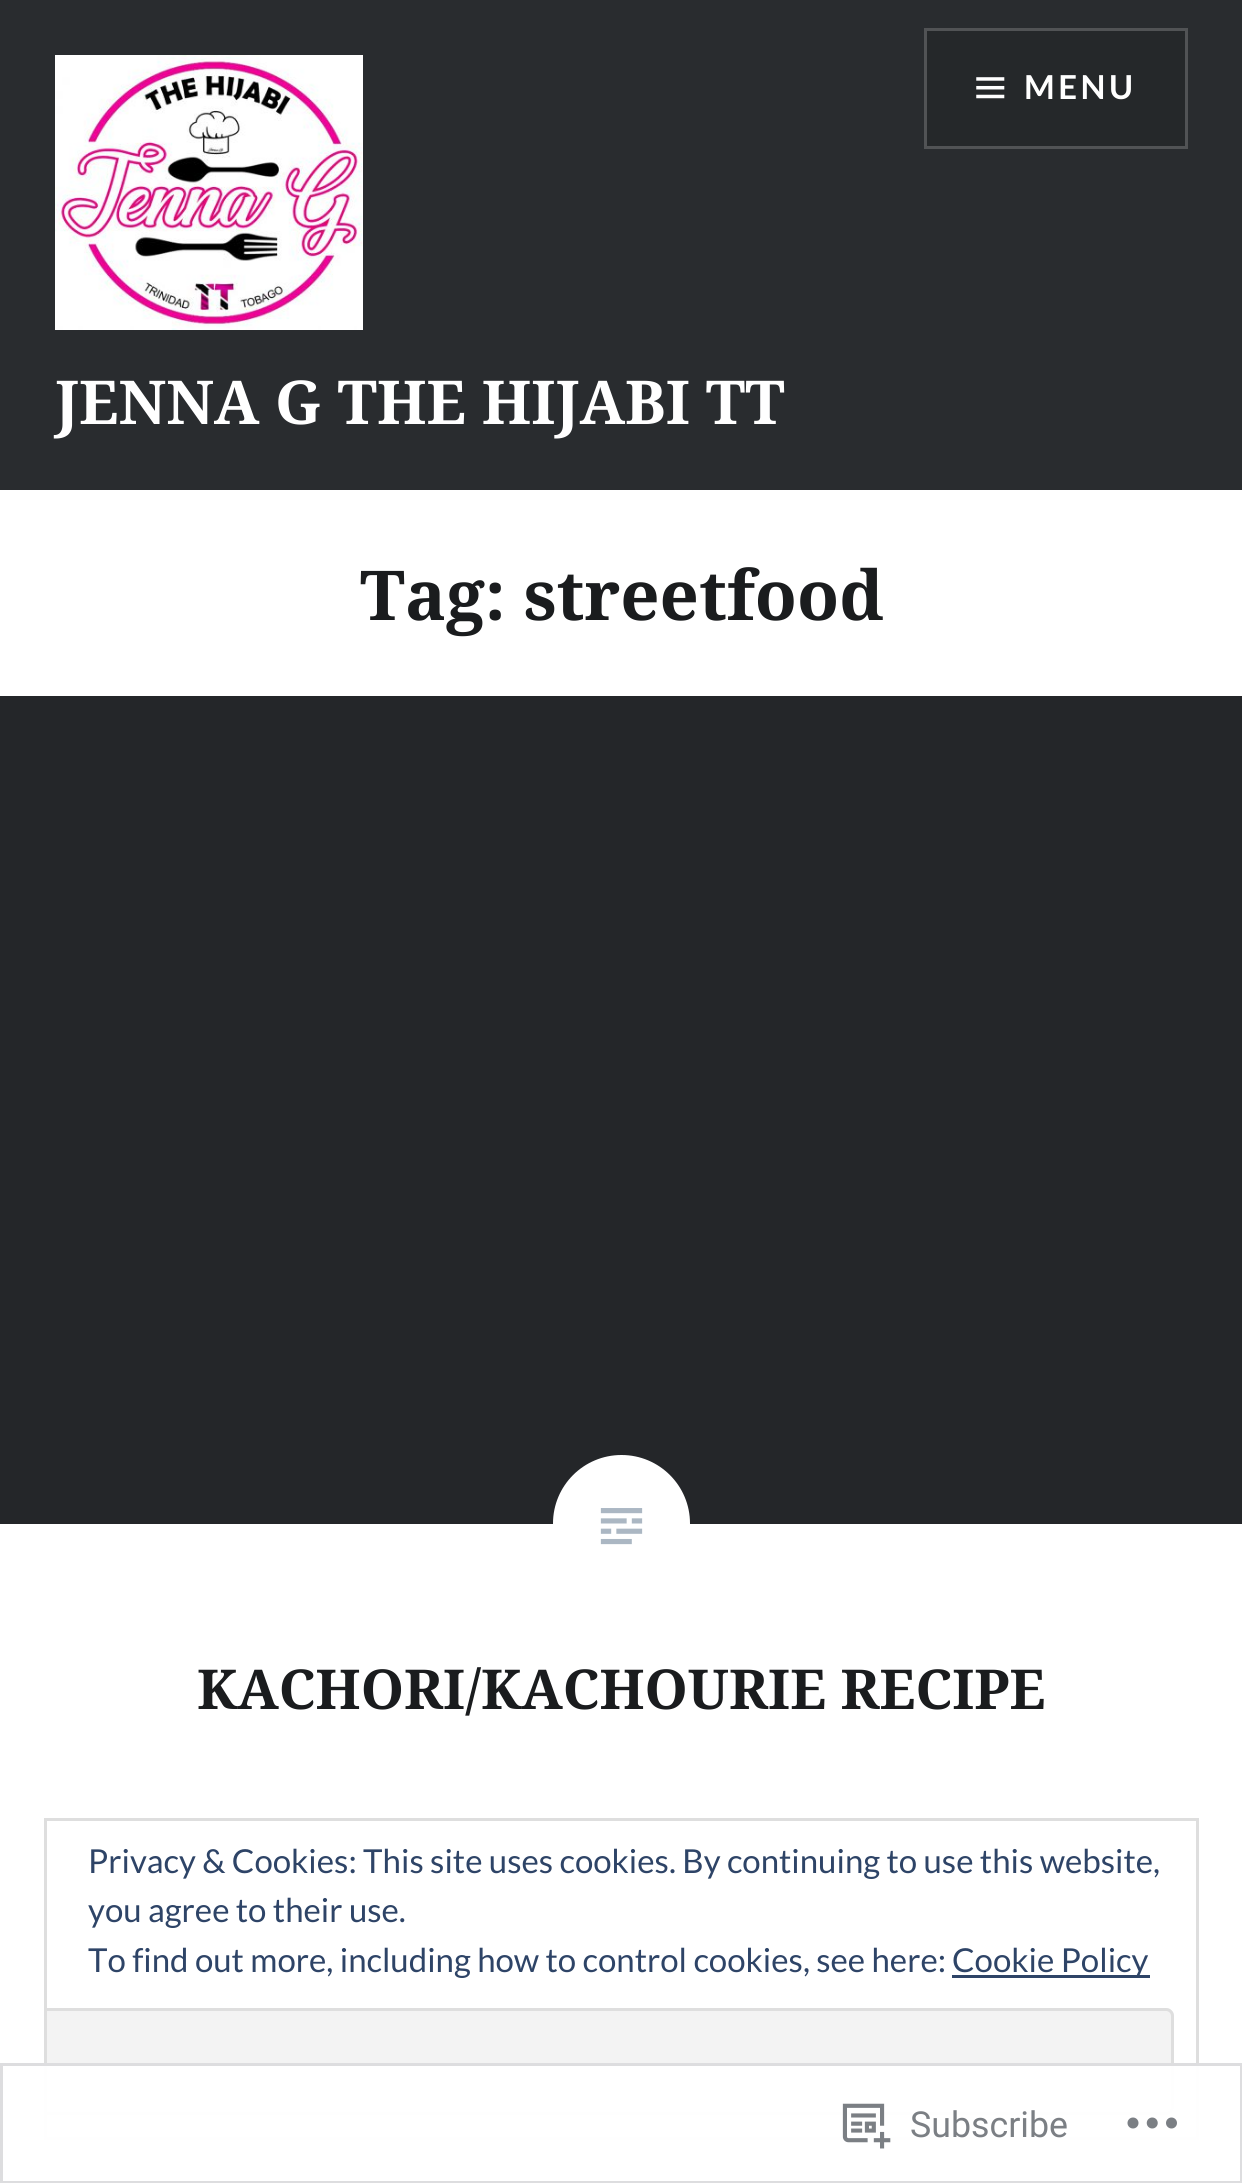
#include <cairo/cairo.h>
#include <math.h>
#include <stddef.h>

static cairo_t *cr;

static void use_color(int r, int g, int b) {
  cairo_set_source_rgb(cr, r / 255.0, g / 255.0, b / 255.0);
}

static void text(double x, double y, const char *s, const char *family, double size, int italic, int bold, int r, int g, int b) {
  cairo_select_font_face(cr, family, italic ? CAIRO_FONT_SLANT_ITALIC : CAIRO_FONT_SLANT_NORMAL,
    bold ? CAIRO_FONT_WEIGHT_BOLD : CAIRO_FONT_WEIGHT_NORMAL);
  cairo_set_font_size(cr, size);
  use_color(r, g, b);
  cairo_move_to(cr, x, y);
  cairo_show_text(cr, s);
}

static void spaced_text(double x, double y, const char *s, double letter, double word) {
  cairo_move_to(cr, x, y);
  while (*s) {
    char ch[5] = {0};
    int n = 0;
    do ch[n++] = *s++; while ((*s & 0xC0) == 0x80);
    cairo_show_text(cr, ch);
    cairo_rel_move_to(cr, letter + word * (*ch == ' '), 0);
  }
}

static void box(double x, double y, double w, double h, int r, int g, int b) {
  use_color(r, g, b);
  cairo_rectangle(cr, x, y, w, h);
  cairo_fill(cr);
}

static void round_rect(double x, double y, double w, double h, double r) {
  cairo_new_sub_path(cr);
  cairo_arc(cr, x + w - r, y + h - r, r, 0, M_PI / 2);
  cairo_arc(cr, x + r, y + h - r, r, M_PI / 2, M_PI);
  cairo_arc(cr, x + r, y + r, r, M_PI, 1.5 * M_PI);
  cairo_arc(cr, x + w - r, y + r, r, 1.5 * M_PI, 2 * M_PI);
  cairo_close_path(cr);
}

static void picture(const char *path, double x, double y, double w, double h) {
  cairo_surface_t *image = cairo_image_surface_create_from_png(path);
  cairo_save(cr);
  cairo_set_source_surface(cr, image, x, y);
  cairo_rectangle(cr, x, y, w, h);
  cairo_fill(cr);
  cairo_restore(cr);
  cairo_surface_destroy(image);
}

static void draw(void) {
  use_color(255, 255, 255);
  cairo_paint(cr);
  box(0, 0, 1242, 490, 41, 44, 47);
  use_color(37, 40, 42);
  cairo_rectangle(cr, 925.5, 29.5, 261, 118);
  cairo_fill_preserve(cr);
  use_color(81, 83, 85);
  cairo_set_line_width(cr, 3);
  cairo_stroke(cr);
  picture("img_01.png", 976, 77, 29, 22);
  picture("img_02.png", 55, 55, 308, 275);
  box(0, 696, 1242, 828, 36, 38, 41);
  use_color(255, 255, 255);
  cairo_arc(cr, 621.5, 1523.5, 68.5, 0, 2 * M_PI);
  cairo_fill(cr);
  picture("img_03.png", 600, 1508, 43, 37);
  cairo_rectangle(cr, 45.5, 1819.5, 1152, 319);
  use_color(222, 222, 222);
  cairo_stroke(cr);
  box(952, 1975, 198, 3, 46, 68, 103);
  use_color(243, 243, 243);
  cairo_new_path(cr);
  cairo_move_to(cr, 47, 2008);
  cairo_line_to(cr, 1166, 2008);
  cairo_curve_to(cr, 1170.5, 2008, 1174, 2011.5, 1174, 2016);
  cairo_line_to(cr, 1174, 2107);
  cairo_curve_to(cr, 1174, 2111.5, 1170.5, 2115, 1166, 2115);
  cairo_line_to(cr, 47, 2115);
  cairo_close_path(cr);
  cairo_fill(cr);
  cairo_save(cr);
  cairo_rectangle(cr, 47, 1821, 1149, 316);
  cairo_clip(cr);
  round_rect(26.5, 2009.5, 1146, 104, 6.5);
  use_color(222, 222, 222);
  cairo_stroke(cr);
  cairo_restore(cr);
  cairo_set_source_rgba(cr, 1, 1, 1, 0.98);
  cairo_rectangle(cr, 44, 2063, 1155, 77);
  cairo_fill(cr);
  cairo_rectangle(cr, 1.5, 2064.5, 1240, 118);
  cairo_set_source_rgba(cr, 0.863, 0.863, 0.871, 0.98);
  cairo_stroke(cr);
  picture("img_04.png", 842, 2103, 49, 46);
  picture("img_05.png", 1127, 2117, 50, 12);
  cairo_select_font_face(cr, "Lato", CAIRO_FONT_SLANT_NORMAL, CAIRO_FONT_WEIGHT_BOLD);
  cairo_set_font_size(cr, 33);
  use_color(255, 255, 255);
  spaced_text(1024, 99, "MENU", 3.5, 0);
  text(55, 424, "JENNA G THE HIJABI TT", "Noto Serif", 60.5, 0, 1, 255, 255, 255);
  text(360, 620, "Tag: streetfood", "Noto Serif", 68.75, 0, 1, 26, 28, 30);
  text(197, 1709, "KACHORI/KACHOURIE RECIPE", "Noto Serif", 55, 0, 1, 26, 28, 30);
  text(88, 1873, "Privacy & Cookies: This site uses cookies. By continuing to use this website,", "Lato", 33, 0, 0, 46, 68, 103);
  text(88, 1922, "you agree to their use.", "Lato", 33, 0, 0, 46, 68, 103);
  text(88, 1972, "To find out more, including how to control cookies, see here:", "Lato", 33, 0, 0, 46, 68, 103);
  text(952, 1972, "Cookie Policy", "Lato", 33, 0, 0, 46, 68, 103);
  text(910, 2137, "Subscribe", "Roboto", 35.75, 0, 0, 123, 127, 132);
}

int main(void) {
  cairo_surface_t *surface = cairo_image_surface_create(CAIRO_FORMAT_RGB24, 1242, 2183);
  cr = cairo_create(surface);
  cairo_font_options_t *options = cairo_font_options_create();
  cairo_font_options_set_hint_metrics(options, CAIRO_HINT_METRICS_OFF);
  cairo_font_options_set_hint_style(options, CAIRO_HINT_STYLE_NONE);
  cairo_set_font_options(cr, options);
  cairo_set_miter_limit(cr, 4);
  draw();
  cairo_surface_write_to_png(surface, "out.png");
  cairo_font_options_destroy(options);
  cairo_destroy(cr);
  cairo_surface_destroy(surface);
  return 0;
}
